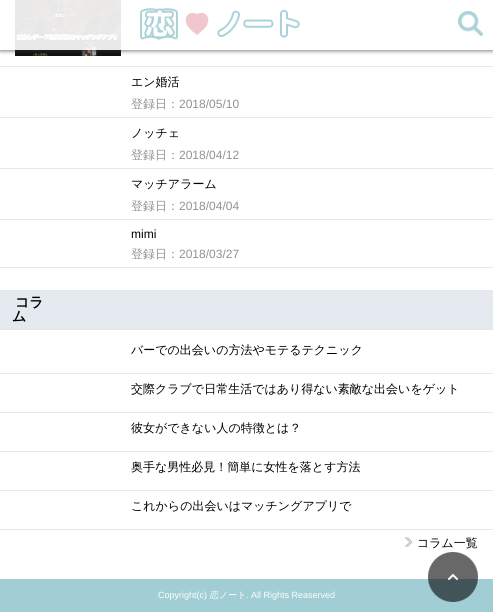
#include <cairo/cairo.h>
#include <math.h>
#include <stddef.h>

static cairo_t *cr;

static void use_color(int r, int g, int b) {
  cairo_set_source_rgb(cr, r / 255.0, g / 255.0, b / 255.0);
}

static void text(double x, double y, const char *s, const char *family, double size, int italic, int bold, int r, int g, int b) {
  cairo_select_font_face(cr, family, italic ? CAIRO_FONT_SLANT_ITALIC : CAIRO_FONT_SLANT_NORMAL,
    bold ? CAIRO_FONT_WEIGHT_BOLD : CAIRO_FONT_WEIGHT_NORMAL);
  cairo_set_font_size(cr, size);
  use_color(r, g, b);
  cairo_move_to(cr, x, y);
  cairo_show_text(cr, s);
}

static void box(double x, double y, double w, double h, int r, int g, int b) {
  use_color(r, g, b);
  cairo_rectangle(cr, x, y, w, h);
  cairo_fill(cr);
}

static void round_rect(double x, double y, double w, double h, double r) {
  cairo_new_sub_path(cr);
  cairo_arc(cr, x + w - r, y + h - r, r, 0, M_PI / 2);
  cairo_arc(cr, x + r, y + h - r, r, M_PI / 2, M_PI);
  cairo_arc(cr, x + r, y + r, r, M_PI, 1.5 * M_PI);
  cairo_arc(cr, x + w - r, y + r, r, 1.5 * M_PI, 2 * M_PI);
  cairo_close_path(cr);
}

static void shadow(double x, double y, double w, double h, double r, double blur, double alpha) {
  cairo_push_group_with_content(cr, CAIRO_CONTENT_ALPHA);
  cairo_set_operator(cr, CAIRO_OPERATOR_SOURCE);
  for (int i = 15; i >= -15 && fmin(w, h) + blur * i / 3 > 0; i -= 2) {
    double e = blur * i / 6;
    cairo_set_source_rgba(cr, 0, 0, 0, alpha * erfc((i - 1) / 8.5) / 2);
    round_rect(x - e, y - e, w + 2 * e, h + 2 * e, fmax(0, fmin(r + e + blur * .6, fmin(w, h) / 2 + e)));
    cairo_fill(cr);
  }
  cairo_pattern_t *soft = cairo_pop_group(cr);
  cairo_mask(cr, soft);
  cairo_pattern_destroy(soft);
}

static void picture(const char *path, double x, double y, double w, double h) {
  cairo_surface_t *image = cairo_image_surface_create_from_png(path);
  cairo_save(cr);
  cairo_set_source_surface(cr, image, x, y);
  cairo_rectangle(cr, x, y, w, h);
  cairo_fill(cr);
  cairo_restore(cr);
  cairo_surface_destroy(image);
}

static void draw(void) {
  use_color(255, 255, 255);
  cairo_paint(cr);
  picture("img_03.png", 15, 0, 106, 56);
  cairo_save(cr);
  cairo_rectangle(cr, 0, 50, 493, 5);
  cairo_clip(cr);
  use_color(51, 51, 51);
  shadow(0, 0, 493, 50, 0, 2.5, 0.9);
  cairo_restore(cr);
  cairo_set_source_rgba(cr, 1, 1, 1, 0.9);
  cairo_rectangle(cr, 15, 0, 106, 50);
  cairo_fill(cr);
  picture("img_01.png", 140, 8, 160, 32);
  picture("img_02.png", 458, 11, 25, 25);
  box(0, 66, 493, 1, 230, 232, 226);
  box(0, 117, 493, 1, 230, 232, 226);
  box(0, 168, 493, 1, 230, 232, 226);
  box(0, 219, 493, 1, 230, 232, 226);
  box(0, 267, 493, 1, 230, 232, 226);
  box(0, 290, 493, 38, 229, 234, 240);
  box(0, 328, 493, 2, 230, 232, 226);
  box(0, 373, 493, 1, 230, 232, 226);
  box(0, 412, 493, 1, 230, 232, 226);
  box(0, 451, 493, 1, 230, 232, 226);
  box(0, 490, 493, 1, 230, 232, 226);
  box(0, 529, 493, 1, 230, 232, 226);
  picture("img_04.png", 405, 537, 7, 10);
  box(0, 579, 493, 33, 161, 206, 213);
  picture("img_05.png", 428, 552, 50, 50);
  text(131, 86, "エン婚活", "WenQuanYi Zen Hei Medium", 12, 0, 0, 0, 0, 0);
  text(131, 108, "登録日：", "WenQuanYi Zen Hei Medium", 12, 0, 0, 145, 145, 145);
  text(179, 108, "2018/05/10", "Liberation Sans", 12, 0, 0, 145, 145, 145);
  text(131, 137, "ノッチェ", "WenQuanYi Zen Hei Medium", 12, 0, 0, 0, 0, 0);
  text(131, 159, "登録日：", "WenQuanYi Zen Hei Medium", 12, 0, 0, 145, 145, 145);
  text(179, 159, "2018/04/12", "Liberation Sans", 12, 0, 0, 145, 145, 145);
  text(131, 188, "マッチアラーム", "WenQuanYi Zen Hei Medium", 12, 0, 0, 0, 0, 0);
  text(131, 210, "登録日：", "WenQuanYi Zen Hei Medium", 12, 0, 0, 145, 145, 145);
  text(179, 210, "2018/04/04", "Liberation Sans", 12, 0, 0, 145, 145, 145);
  text(131, 238, "mimi", "Liberation Sans", 12, 0, 0, 0, 0, 0);
  text(131, 258, "登録日：", "WenQuanYi Zen Hei Medium", 12, 0, 0, 145, 145, 145);
  text(179, 258, "2018/03/27", "Liberation Sans", 12, 0, 0, 145, 145, 145);
  text(15, 307, "コラ", "WenQuanYi Zen Hei", 14, 0, 1, 0, 0, 0);
  text(12, 321, "ム", "WenQuanYi Zen Hei", 14, 0, 1, 0, 0, 0);
  text(131, 354, "バーでの出会いの方法やモテるテクニック", "WenQuanYi Zen Hei Medium", 12, 0, 0, 0, 0, 0);
  text(131, 393, "交際クラブで日常生活ではあり得ない素敵な出会いをゲット", "WenQuanYi Zen Hei Medium", 12, 0, 0, 0, 0, 0);
  text(131, 432, "彼女ができない人の特徴とは？", "WenQuanYi Zen Hei Medium", 12, 0, 0, 0, 0, 0);
  text(131, 471, "奥手な男性必見！簡単に女性を落とす方法", "WenQuanYi Zen Hei Medium", 12, 0, 0, 0, 0, 0);
  text(131, 510, "これからの出会いはマッチングアプリで", "WenQuanYi Zen Hei Medium", 12, 0, 0, 0, 0, 0);
  text(417, 547, "コラム一覧", "WenQuanYi Zen Hei Medium", 12, 0, 0, 0, 0, 0);
  text(158, 598, "Copyright(c)", "Liberation Sans", 9, 0, 0, 255, 255, 255);
  text(210, 598, "恋ノート", "WenQuanYi Zen Hei Medium", 9, 0, 0, 255, 255, 255);
  text(246, 598, ". All Rights Reaserved", "Liberation Sans", 9, 0, 0, 255, 255, 255);
}

int main(void) {
  cairo_surface_t *surface = cairo_image_surface_create(CAIRO_FORMAT_RGB24, 493, 612);
  cr = cairo_create(surface);
  cairo_font_options_t *options = cairo_font_options_create();
  cairo_font_options_set_hint_metrics(options, CAIRO_HINT_METRICS_OFF);
  cairo_font_options_set_hint_style(options, CAIRO_HINT_STYLE_NONE);
  cairo_set_font_options(cr, options);
  cairo_set_miter_limit(cr, 4);
  draw();
  cairo_surface_write_to_png(surface, "out.png");
  cairo_font_options_destroy(options);
  cairo_destroy(cr);
  cairo_surface_destroy(surface);
  return 0;
}
